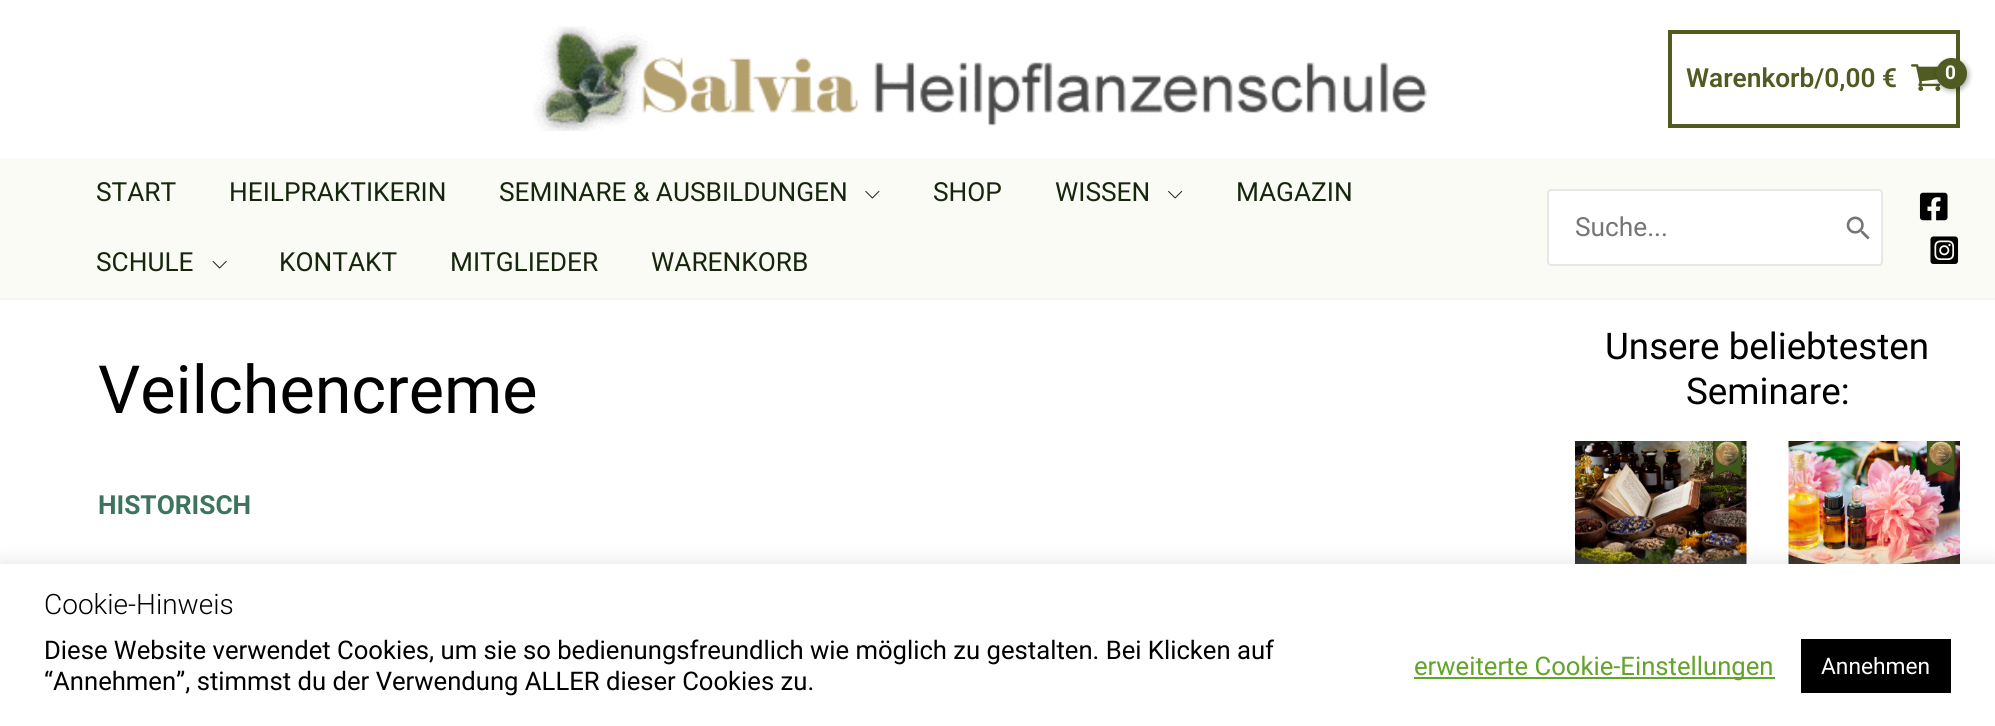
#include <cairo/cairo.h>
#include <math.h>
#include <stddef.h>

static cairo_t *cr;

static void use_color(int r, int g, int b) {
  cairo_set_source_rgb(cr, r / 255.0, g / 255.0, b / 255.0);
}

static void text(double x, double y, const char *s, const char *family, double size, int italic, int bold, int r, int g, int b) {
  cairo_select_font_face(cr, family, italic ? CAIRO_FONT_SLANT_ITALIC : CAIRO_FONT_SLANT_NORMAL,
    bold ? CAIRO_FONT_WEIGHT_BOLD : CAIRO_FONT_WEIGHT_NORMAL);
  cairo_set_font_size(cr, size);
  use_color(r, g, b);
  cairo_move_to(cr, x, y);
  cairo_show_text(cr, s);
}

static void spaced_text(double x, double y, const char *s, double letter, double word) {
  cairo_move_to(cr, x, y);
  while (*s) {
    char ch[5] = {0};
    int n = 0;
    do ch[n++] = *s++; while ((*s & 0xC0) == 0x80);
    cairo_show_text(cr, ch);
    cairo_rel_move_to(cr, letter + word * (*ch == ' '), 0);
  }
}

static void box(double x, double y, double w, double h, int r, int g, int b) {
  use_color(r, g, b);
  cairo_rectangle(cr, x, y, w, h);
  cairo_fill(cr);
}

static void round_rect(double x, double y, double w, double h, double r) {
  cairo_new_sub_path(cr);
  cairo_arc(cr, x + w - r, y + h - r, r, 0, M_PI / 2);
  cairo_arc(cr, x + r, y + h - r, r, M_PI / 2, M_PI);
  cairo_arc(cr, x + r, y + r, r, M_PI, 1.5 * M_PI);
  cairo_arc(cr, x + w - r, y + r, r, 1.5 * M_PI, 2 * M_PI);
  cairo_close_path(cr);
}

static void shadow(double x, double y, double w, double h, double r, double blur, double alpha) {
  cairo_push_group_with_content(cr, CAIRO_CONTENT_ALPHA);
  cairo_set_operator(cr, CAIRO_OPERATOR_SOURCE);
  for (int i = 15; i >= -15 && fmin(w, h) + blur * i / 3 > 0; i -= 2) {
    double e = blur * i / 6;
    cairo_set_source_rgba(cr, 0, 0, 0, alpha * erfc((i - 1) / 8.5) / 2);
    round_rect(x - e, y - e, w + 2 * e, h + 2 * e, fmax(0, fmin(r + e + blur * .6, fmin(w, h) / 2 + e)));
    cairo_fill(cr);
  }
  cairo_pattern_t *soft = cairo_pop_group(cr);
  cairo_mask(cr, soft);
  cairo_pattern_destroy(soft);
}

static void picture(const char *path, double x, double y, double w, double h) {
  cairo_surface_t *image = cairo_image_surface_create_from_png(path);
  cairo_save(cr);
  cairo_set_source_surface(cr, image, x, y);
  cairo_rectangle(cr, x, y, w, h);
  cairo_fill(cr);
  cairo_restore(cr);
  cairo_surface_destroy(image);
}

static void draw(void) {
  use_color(255, 255, 255);
  cairo_paint(cr);
  picture("img_01.png", 533, 26, 894, 105);
  cairo_rectangle(cr, 1670, 32, 288, 94);
  use_color(79, 91, 33);
  cairo_set_line_width(cr, 4);
  cairo_stroke(cr);
  picture("img_02.png", 1911, 64, 30, 27);
  use_color(0, 0, 0);
  shadow(1937, 60, 32, 31, 15.5, 2.5, 0.3);
  use_color(79, 91, 33);
  cairo_arc(cr, 1951.5, 73.5, 15.5, 0, 2 * M_PI);
  cairo_fill(cr);
  box(0, 158, 1995, 140, 250, 251, 244);
  box(0, 298, 1995, 2, 242, 245, 247);
  picture("img_03.png", 865, 190, 15, 9);
  picture("img_04.png", 1168, 190, 15, 9);
  picture("img_05.png", 212, 260, 15, 9);
  use_color(255, 255, 255);
  round_rect(1548, 190, 334, 75, 3);
  cairo_fill_preserve(cr);
  use_color(231, 231, 231);
  cairo_set_line_width(cr, 2);
  cairo_stroke(cr);
  picture("img_06.png", 1846, 216, 24, 24);
  picture("img_07.png", 1919, 192, 29, 29);
  picture("img_08.png", 1930, 236, 29, 28);
  picture("img_09.png", 1575, 441, 172, 123);
  picture("img_10.png", 1788, 441, 172, 123);
  use_color(172, 171, 171);
  shadow(0, 562, 1995, 163, 0, 9, 0.3);
  box(0, 564, 1995, 162, 255, 255, 255);
  box(1414, 677, 361, 2, 98, 163, 41);
  box(1801, 639, 150, 54, 0, 0, 0);
  text(1686, 87, "Warenkorb/0,00 €", "Roboto SemiBold", 26.25, 0, 0, 79, 91, 33);
  cairo_select_font_face(cr, "Roboto", CAIRO_FONT_SLANT_NORMAL, CAIRO_FONT_WEIGHT_BOLD);
  cairo_set_font_size(cr, 19);
  use_color(255, 255, 255);
  spaced_text(1945, 79, "0", -1, 0);
  text(96, 201, "START", "Roboto", 26.25, 0, 0, 22, 38, 13);
  text(229, 201, "HEILPRAKTIKERIN", "Roboto", 26.25, 0, 0, 22, 38, 13);
  text(499, 201, "SEMINARE & AUSBILDUNGEN", "Roboto", 26.25, 0, 0, 22, 38, 13);
  text(933, 201, "SHOP", "Roboto", 26.25, 0, 0, 22, 38, 13);
  text(1055, 201, "WISSEN", "Roboto", 26.25, 0, 0, 22, 38, 13);
  text(1236, 201, "MAGAZIN", "Roboto", 26.25, 0, 0, 22, 38, 13);
  text(96, 271, "SCHULE", "Roboto", 26.25, 0, 0, 22, 38, 13);
  text(279, 271, "KONTAKT", "Roboto", 26.25, 0, 0, 22, 38, 13);
  text(450, 271, "MITGLIEDER", "Roboto", 26.25, 0, 0, 22, 38, 13);
  text(651, 271, "WARENKORB", "Roboto", 26.25, 0, 0, 22, 38, 13);
  text(1575, 236, "Suche...", "Roboto", 26.25, 0, 0, 117, 117, 117);
  text(98, 413, "Veilchencreme", "Roboto", 66.5, 0, 0, 0, 0, 0);
  text(98, 514, "HISTORISCH", "Roboto", 26.25, 0, 1, 60, 116, 95);
  text(1605, 359, "Unsere beliebtesten", "Roboto", 36.75, 0, 0, 0, 0, 0);
  text(1686, 404, "Seminare:", "Roboto", 36.75, 0, 0, 0, 0, 0);
  text(44, 614, "Cookie-Hinweis", "Roboto Light", 28, 0, 0, 0, 0, 0);
  text(44, 659, "Diese Website verwendet Cookies, um sie so bedienungsfreundlich wie möglich zu gestalten. Bei Klicken auf", "Roboto", 25.65, 0, 0, 0, 0, 0);
  text(44, 690, "“Annehmen”, stimmst du der Verwendung ALLER dieser Cookies zu.", "Roboto", 25.65, 0, 0, 0, 0, 0);
  text(1414, 675, "erweiterte Cookie-Einstellungen", "Roboto", 25.65, 0, 0, 98, 163, 41);
  text(1821, 674, "Annehmen", "Roboto", 22.75, 0, 0, 255, 255, 255);
}

int main(void) {
  cairo_surface_t *surface = cairo_image_surface_create(CAIRO_FORMAT_RGB24, 1995, 726);
  cr = cairo_create(surface);
  cairo_font_options_t *options = cairo_font_options_create();
  cairo_font_options_set_hint_metrics(options, CAIRO_HINT_METRICS_OFF);
  cairo_font_options_set_hint_style(options, CAIRO_HINT_STYLE_NONE);
  cairo_set_font_options(cr, options);
  cairo_set_miter_limit(cr, 4);
  draw();
  cairo_surface_write_to_png(surface, "out.png");
  cairo_font_options_destroy(options);
  cairo_destroy(cr);
  cairo_surface_destroy(surface);
  return 0;
}
